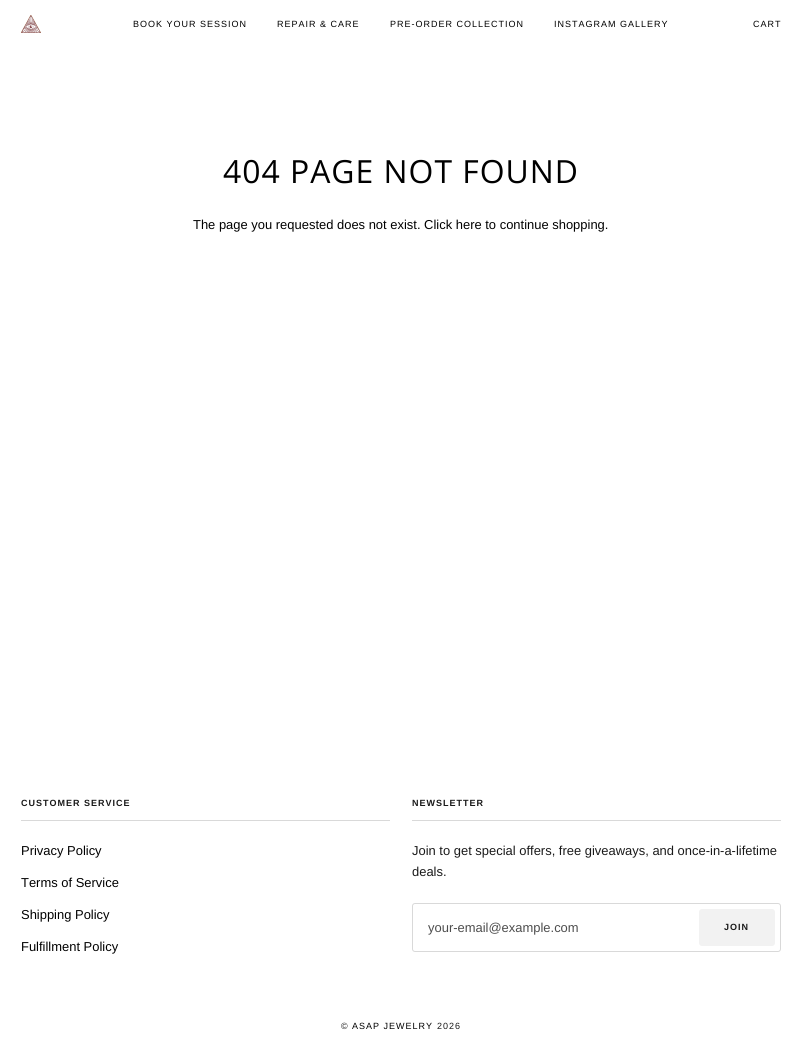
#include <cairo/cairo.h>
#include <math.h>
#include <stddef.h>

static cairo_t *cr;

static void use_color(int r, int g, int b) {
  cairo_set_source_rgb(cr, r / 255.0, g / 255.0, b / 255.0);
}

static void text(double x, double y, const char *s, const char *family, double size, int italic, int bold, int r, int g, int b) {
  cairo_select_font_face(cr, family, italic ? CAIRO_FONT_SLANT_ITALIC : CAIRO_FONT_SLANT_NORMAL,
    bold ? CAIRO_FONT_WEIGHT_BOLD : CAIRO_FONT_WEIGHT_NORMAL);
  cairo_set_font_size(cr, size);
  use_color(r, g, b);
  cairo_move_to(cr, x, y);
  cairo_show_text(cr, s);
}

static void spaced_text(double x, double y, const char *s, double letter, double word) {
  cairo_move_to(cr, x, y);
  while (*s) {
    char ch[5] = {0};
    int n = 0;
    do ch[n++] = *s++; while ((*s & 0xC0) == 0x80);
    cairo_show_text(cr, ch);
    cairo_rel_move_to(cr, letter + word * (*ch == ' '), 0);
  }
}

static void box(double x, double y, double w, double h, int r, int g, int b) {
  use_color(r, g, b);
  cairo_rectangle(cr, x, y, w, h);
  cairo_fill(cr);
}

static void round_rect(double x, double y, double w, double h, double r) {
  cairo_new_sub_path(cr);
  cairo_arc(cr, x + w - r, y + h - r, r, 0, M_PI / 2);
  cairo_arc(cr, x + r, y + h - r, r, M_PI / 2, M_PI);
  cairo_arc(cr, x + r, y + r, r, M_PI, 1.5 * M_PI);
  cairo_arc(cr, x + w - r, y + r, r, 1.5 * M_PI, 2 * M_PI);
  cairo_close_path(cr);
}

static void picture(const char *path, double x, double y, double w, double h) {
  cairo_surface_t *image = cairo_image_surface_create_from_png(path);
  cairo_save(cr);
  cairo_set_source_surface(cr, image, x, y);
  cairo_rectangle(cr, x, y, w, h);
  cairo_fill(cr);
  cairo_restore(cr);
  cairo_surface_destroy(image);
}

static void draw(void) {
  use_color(255, 255, 255);
  cairo_paint(cr);
  picture("img_01.png", 21, 15, 20, 18);
  box(21, 820, 369, 1, 217, 217, 217);
  box(412, 820, 369, 1, 217, 217, 217);
  round_rect(412.5, 903.5, 368, 48, 2.5);
  cairo_set_line_width(cr, 1);
  cairo_stroke(cr);
  use_color(242, 242, 242);
  round_rect(699, 909, 76, 37, 3);
  cairo_fill(cr);
  cairo_select_font_face(cr, "Liberation Sans", CAIRO_FONT_SLANT_NORMAL, CAIRO_FONT_WEIGHT_NORMAL);
  cairo_set_font_size(cr, 9);
  use_color(0, 0, 0);
  spaced_text(133, 27, "BOOK YOUR SESSION", 1, 0);
  spaced_text(277, 27, "REPAIR & CARE", 1, 0);
  spaced_text(390, 27, "PRE-ORDER COLLECTION", 1, 0);
  spaced_text(554, 27, "INSTAGRAM GALLERY", 1, 0);
  spaced_text(753, 27, "CART", 1, 0);
  cairo_select_font_face(cr, "Open Sans", CAIRO_FONT_SLANT_NORMAL, CAIRO_FONT_WEIGHT_NORMAL);
  cairo_set_font_size(cr, 31.9);
  spaced_text(223, 183, "404 PAGE NOT FOUND", 1, 0);
  text(193, 229, "The page you requested does not exist. Click here to continue shopping.", "Liberation Sans", 12.95, 0, 0, 0, 0, 0);
  cairo_select_font_face(cr, "Liberation Sans", CAIRO_FONT_SLANT_NORMAL, CAIRO_FONT_WEIGHT_BOLD);
  cairo_set_font_size(cr, 9);
  use_color(26, 26, 26);
  spaced_text(21, 806, "CUSTOMER SERVICE", 1, 0);
  text(21, 855, "Privacy Policy", "Liberation Sans", 12.95, 0, 0, 0, 0, 0);
  text(21, 887, "Terms of Service", "Liberation Sans", 12.95, 0, 0, 0, 0, 0);
  text(21, 919, "Shipping Policy", "Liberation Sans", 12.95, 0, 0, 0, 0, 0);
  text(21, 951, "Fulfillment Policy", "Liberation Sans", 12.95, 0, 0, 0, 0, 0);
  cairo_select_font_face(cr, "Liberation Sans", CAIRO_FONT_SLANT_NORMAL, CAIRO_FONT_WEIGHT_BOLD);
  cairo_set_font_size(cr, 9);
  use_color(26, 26, 26);
  spaced_text(412, 806, "NEWSLETTER", 1, 0);
  text(412, 855, "Join to get special offers, free giveaways, and once-in-a-lifetime", "Liberation Sans", 12.95, 0, 0, 26, 26, 26);
  text(412, 876, "deals.", "Liberation Sans", 12.95, 0, 0, 26, 26, 26);
  text(428, 932, "your-email@example.com", "Liberation Sans", 12.95, 0, 0, 77, 77, 77);
  cairo_select_font_face(cr, "Liberation Sans", CAIRO_FONT_SLANT_NORMAL, CAIRO_FONT_WEIGHT_BOLD);
  cairo_set_font_size(cr, 9);
  use_color(26, 26, 26);
  spaced_text(724, 930, "JOIN", 1, 0);
  cairo_select_font_face(cr, "Liberation Sans", CAIRO_FONT_SLANT_NORMAL, CAIRO_FONT_WEIGHT_NORMAL);
  spaced_text(341, 1029, "©", 1, 0);
  use_color(0, 0, 0);
  spaced_text(352, 1029, "ASAP JEWELRY", 1, 0);
  use_color(26, 26, 26);
  spaced_text(437, 1029, "2026", 1, 0);
}

int main(void) {
  cairo_surface_t *surface = cairo_image_surface_create(CAIRO_FORMAT_RGB24, 802, 1060);
  cr = cairo_create(surface);
  cairo_font_options_t *options = cairo_font_options_create();
  cairo_font_options_set_hint_metrics(options, CAIRO_HINT_METRICS_OFF);
  cairo_font_options_set_hint_style(options, CAIRO_HINT_STYLE_NONE);
  cairo_set_font_options(cr, options);
  cairo_set_miter_limit(cr, 4);
  draw();
  cairo_surface_write_to_png(surface, "out.png");
  cairo_font_options_destroy(options);
  cairo_destroy(cr);
  cairo_surface_destroy(surface);
  return 0;
}
